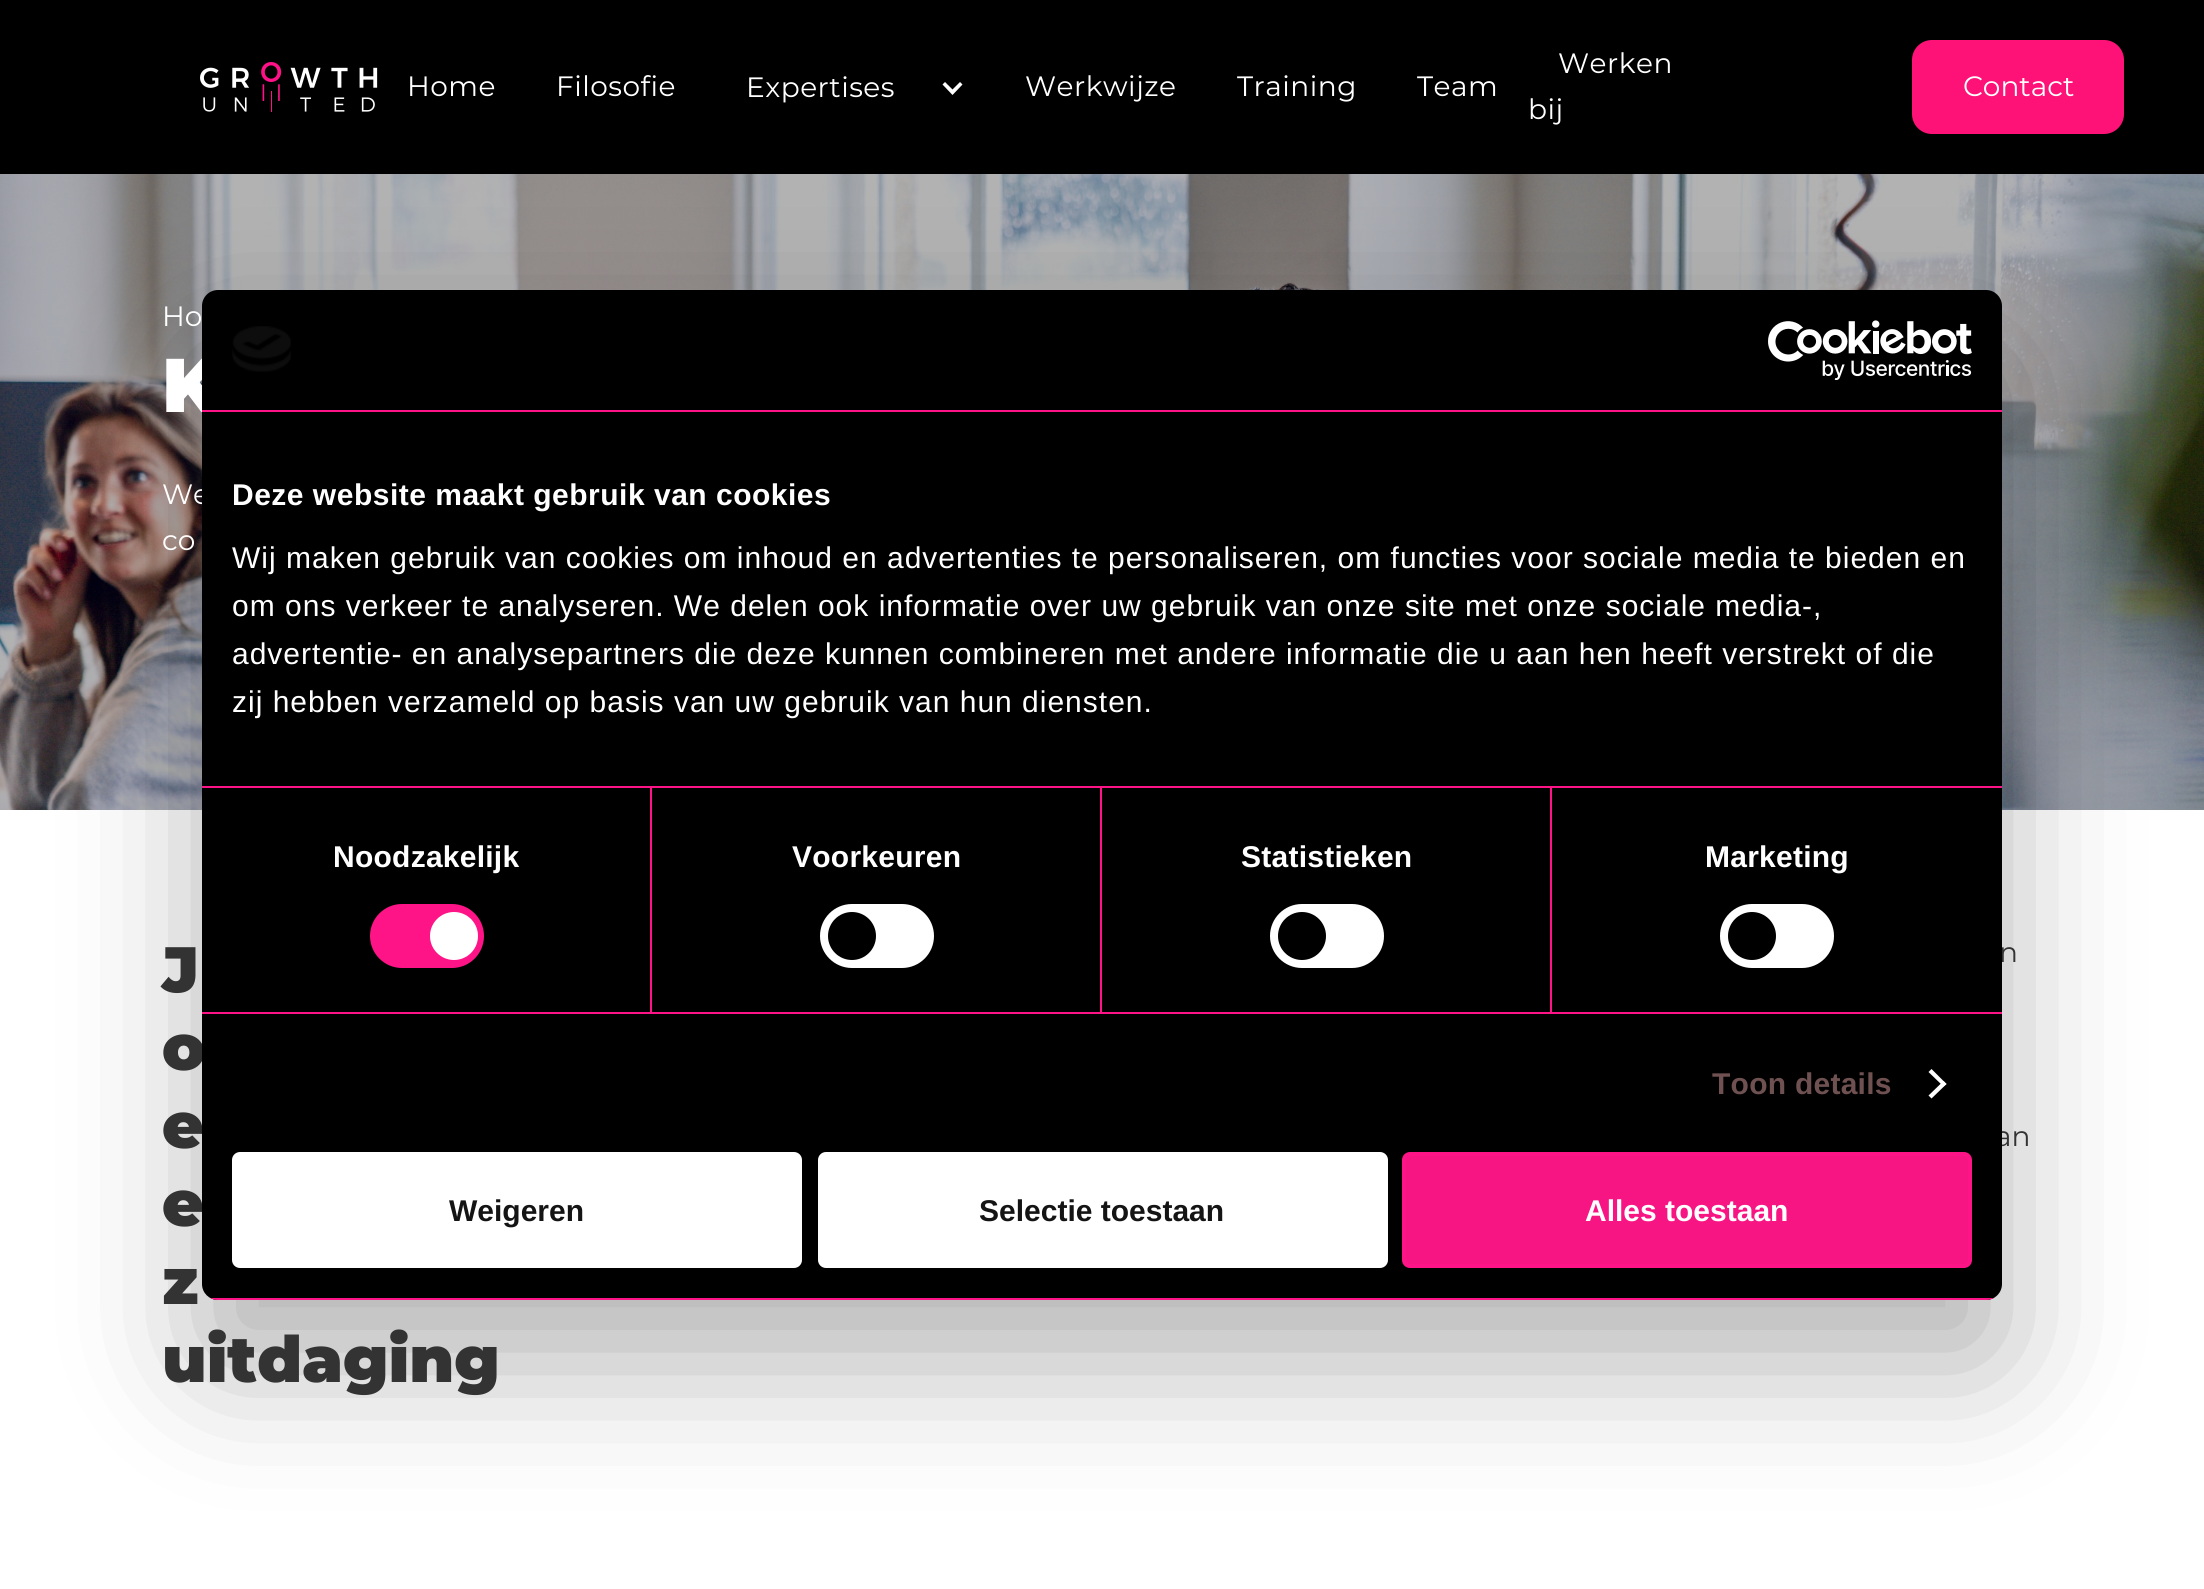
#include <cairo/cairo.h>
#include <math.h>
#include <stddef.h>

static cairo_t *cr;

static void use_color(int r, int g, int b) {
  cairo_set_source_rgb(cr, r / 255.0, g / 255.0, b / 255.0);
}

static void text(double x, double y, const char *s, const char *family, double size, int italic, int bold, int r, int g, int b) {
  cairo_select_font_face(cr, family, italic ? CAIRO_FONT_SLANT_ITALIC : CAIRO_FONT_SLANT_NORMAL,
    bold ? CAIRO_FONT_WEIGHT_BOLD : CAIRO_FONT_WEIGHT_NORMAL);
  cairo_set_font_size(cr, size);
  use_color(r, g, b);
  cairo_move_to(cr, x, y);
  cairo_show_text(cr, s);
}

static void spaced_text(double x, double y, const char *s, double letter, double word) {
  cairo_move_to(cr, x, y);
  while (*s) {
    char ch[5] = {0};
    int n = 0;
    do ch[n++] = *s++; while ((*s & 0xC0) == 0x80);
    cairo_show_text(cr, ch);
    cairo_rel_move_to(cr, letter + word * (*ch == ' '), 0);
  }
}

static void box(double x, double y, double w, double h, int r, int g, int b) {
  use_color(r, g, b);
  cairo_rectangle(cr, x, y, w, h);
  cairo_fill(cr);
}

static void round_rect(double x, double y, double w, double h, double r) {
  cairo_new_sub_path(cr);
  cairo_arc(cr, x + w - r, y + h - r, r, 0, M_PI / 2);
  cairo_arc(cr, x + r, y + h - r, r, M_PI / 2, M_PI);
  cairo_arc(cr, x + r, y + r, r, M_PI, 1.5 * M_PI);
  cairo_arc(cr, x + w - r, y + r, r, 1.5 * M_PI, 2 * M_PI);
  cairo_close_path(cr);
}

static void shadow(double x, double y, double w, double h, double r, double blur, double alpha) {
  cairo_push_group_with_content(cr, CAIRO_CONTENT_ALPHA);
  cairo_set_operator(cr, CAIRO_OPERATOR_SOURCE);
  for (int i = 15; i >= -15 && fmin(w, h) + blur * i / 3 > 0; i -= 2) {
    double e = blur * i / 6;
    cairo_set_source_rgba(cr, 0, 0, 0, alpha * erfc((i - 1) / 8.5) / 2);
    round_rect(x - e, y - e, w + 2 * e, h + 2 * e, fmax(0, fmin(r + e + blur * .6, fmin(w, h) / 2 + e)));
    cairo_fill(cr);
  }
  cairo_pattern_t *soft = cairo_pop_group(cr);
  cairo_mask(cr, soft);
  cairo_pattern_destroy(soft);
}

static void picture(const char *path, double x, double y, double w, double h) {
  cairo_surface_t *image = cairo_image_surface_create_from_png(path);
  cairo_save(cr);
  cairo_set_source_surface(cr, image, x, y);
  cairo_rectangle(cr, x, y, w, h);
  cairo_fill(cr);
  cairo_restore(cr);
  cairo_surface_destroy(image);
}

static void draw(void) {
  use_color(255, 255, 255);
  cairo_paint(cr);
  picture("img_02.png", 0, 174, 2204, 636);
  use_color(0, 0, 0);
  shadow(202, 354, 1800, 1010, 16, 68, 0.3);
  box(0, 0, 2204, 174, 0, 0, 0);
  picture("img_01.png", 200, 62, 178, 50);
  use_color(255, 255, 255);
  cairo_new_path(cr);
  cairo_move_to(cr, 960, 82);
  cairo_line_to(cr, 952.5, 89.5);
  cairo_line_to(cr, 945, 82);
  cairo_line_to(cr, 942.5, 84.5);
  cairo_line_to(cr, 952.5, 95);
  cairo_line_to(cr, 962.5, 84.5);
  cairo_close_path(cr);
  cairo_fill(cr);
  use_color(255, 18, 120);
  round_rect(1912, 40, 212, 94, 20);
  cairo_fill(cr);
  cairo_select_font_face(cr, "Montserrat", CAIRO_FONT_SLANT_NORMAL, CAIRO_FONT_WEIGHT_NORMAL);
  cairo_set_font_size(cr, 28);
  use_color(255, 255, 255);
  spaced_text(407, 96, "Home", 0.5, 0);
  spaced_text(556, 96, "Filosofie", 0.5, 0);
  spaced_text(746, 97, "Expertises", 0.5, 0);
  spaced_text(1025, 96, "Werkwijze", 0.5, 0);
  spaced_text(1237, 96, "Training", 0.5, 0);
  spaced_text(1417, 96, "Team", 0.5, 0);
  spaced_text(1558, 73, "Werken", 0.5, 0);
  spaced_text(1528, 119, "bij", 0.5, 0);
  text(1963, 96, "Contact", "Montserrat", 28, 0, 0, 255, 255, 255);
  text(162, 326, "Ho", "Montserrat", 28, 0, 0, 255, 255, 255);
  text(162, 412, "K", "Montserrat Black", 76, 0, 0, 255, 255, 255);
  text(162, 504, "We", "Montserrat", 28, 0, 0, 255, 255, 255);
  text(162, 550, "co", "Montserrat", 28, 0, 0, 255, 255, 255);
  text(162, 992, "J", "Montserrat Black", 64, 0, 0, 51, 51, 51);
  text(162, 1070, "o", "Montserrat Black", 64, 0, 0, 51, 51, 51);
  text(162, 1148, "e", "Montserrat Black", 64, 0, 0, 51, 51, 51);
  text(162, 1226, "e", "Montserrat Black", 64, 0, 0, 51, 51, 51);
  text(162, 1304, "z", "Montserrat Black", 64, 0, 0, 51, 51, 51);
  text(162, 1382, "uitdaging", "Montserrat Black", 64, 0, 0, 51, 51, 51);
  text(1999, 962, "n", "Montserrat", 28, 0, 0, 51, 51, 51);
  text(1995, 1146, "an", "Montserrat", 28, 0, 0, 51, 51, 51);
  use_color(0, 0, 0);
  round_rect(202, 290, 1800, 1010, 16);
  cairo_fill(cr);
  use_color(247, 21, 131);
  round_rect(1404, 1154, 566, 112, 6);
  cairo_fill_preserve(cr);
  use_color(254, 20, 134);
  cairo_set_line_width(cr, 4);
  cairo_stroke(cr);
  text(1585, 1221, "Alles toestaan", "Liberation Sans", 30, 0, 1, 255, 255, 255);
  round_rect(820, 1154, 566, 112, 6);
  cairo_fill_preserve(cr);
  cairo_stroke(cr);
  text(979, 1221, "Selectie toestaan", "Liberation Sans", 30, 0, 1, 20, 20, 20);
  use_color(255, 255, 255);
  round_rect(234, 1154, 566, 112, 6);
  cairo_fill_preserve(cr);
  cairo_stroke(cr);
  text(449, 1221, "Weigeren", "Liberation Sans", 30, 0, 1, 20, 20, 20);
  cairo_save(cr);
  round_rect(202, 290, 1800, 1010, 16);
  cairo_clip(cr);
  box(202, 1298, 1800, 2, 254, 20, 134);
  cairo_restore(cr);
  use_color(255, 255, 255);
  cairo_new_path(cr);
  cairo_move_to(cr, 1931.5, 1069);
  cairo_line_to(cr, 1946.5, 1084);
  cairo_line_to(cr, 1943.5, 1086.5);
  cairo_line_to(cr, 1928.5, 1072);
  cairo_close_path(cr);
  cairo_fill(cr);
  cairo_new_path(cr);
  cairo_move_to(cr, 1943.5, 1081);
  cairo_line_to(cr, 1946.5, 1084);
  cairo_line_to(cr, 1931.5, 1098.5);
  cairo_line_to(cr, 1928.5, 1095.5);
  cairo_close_path(cr);
  cairo_fill(cr);
  round_rect(1720, 904, 114, 64, 32);
  cairo_fill(cr);
  use_color(0, 0, 0);
  cairo_arc(cr, 1752, 936, 24, 0, 2 * M_PI);
  cairo_fill(cr);
  use_color(255, 255, 255);
  round_rect(1270, 904, 114, 64, 32);
  cairo_fill(cr);
  use_color(0, 0, 0);
  cairo_arc(cr, 1302, 936, 24, 0, 2 * M_PI);
  cairo_fill(cr);
  use_color(255, 255, 255);
  round_rect(820, 904, 114, 64, 32);
  cairo_fill(cr);
  use_color(0, 0, 0);
  cairo_arc(cr, 852, 936, 24, 0, 2 * M_PI);
  cairo_fill(cr);
  use_color(254, 20, 134);
  round_rect(370, 904, 114, 64, 32);
  cairo_fill(cr);
  use_color(255, 255, 255);
  cairo_arc(cr, 454, 936, 24, 0, 2 * M_PI);
  cairo_fill(cr);
  cairo_select_font_face(cr, "Liberation Sans", CAIRO_FONT_SLANT_NORMAL, CAIRO_FONT_WEIGHT_NORMAL);
  spaced_text(232, 712, "zij hebben verzameld op basis van uw gebruik van hun diensten.", 1, 0);
  spaced_text(232, 664, "advertentie- en analysepartners die deze kunnen combineren met andere informatie die u aan hen heeft verstrekt of die", 1, 0);
  spaced_text(232, 616, "om ons verkeer te analyseren. We delen ook informatie over uw gebruik van onze site met onze sociale media-,", 1, 0);
  spaced_text(232, 568, "Wij maken gebruik van cookies om inhoud en advertenties te personaliseren, om functies voor sociale media te bieden en", 1, 0);
  cairo_select_font_face(cr, "Liberation Sans", CAIRO_FONT_SLANT_NORMAL, CAIRO_FONT_WEIGHT_BOLD);
  spaced_text(232, 505, "Deze website maakt gebruik van cookies", 0.5, 0);
  box(202, 786, 1800, 2, 254, 20, 134);
  use_color(112, 81, 81);
  spaced_text(1712, 1094, "Toon details", 0.25, 0);
  use_color(255, 255, 255);
  spaced_text(1705, 867, "Marketing", 0.25, 0);
  spaced_text(1241, 867, "Statistieken", 0.25, 0);
  box(1550, 788, 2, 224, 254, 20, 134);
  use_color(255, 255, 255);
  spaced_text(792, 867, "Voorkeuren", 0.25, 0);
  box(1100, 788, 2, 224, 254, 20, 134);
  use_color(255, 255, 255);
  spaced_text(333, 867, "Noodzakelijk", 0.25, 0);
  box(650, 788, 2, 224, 254, 20, 134);
  box(202, 1012, 1800, 2, 254, 20, 134);
  picture("img_04.png", 1768, 320, 204, 60);
  picture("img_03.png", 232, 326, 59, 46);
  box(202, 410, 1800, 2, 254, 20, 134);
}

int main(void) {
  cairo_surface_t *surface = cairo_image_surface_create(CAIRO_FORMAT_RGB24, 2204, 1589);
  cr = cairo_create(surface);
  cairo_font_options_t *options = cairo_font_options_create();
  cairo_font_options_set_hint_metrics(options, CAIRO_HINT_METRICS_OFF);
  cairo_font_options_set_hint_style(options, CAIRO_HINT_STYLE_NONE);
  cairo_set_font_options(cr, options);
  cairo_set_miter_limit(cr, 4);
  draw();
  cairo_surface_write_to_png(surface, "out.png");
  cairo_font_options_destroy(options);
  cairo_destroy(cr);
  cairo_surface_destroy(surface);
  return 0;
}
